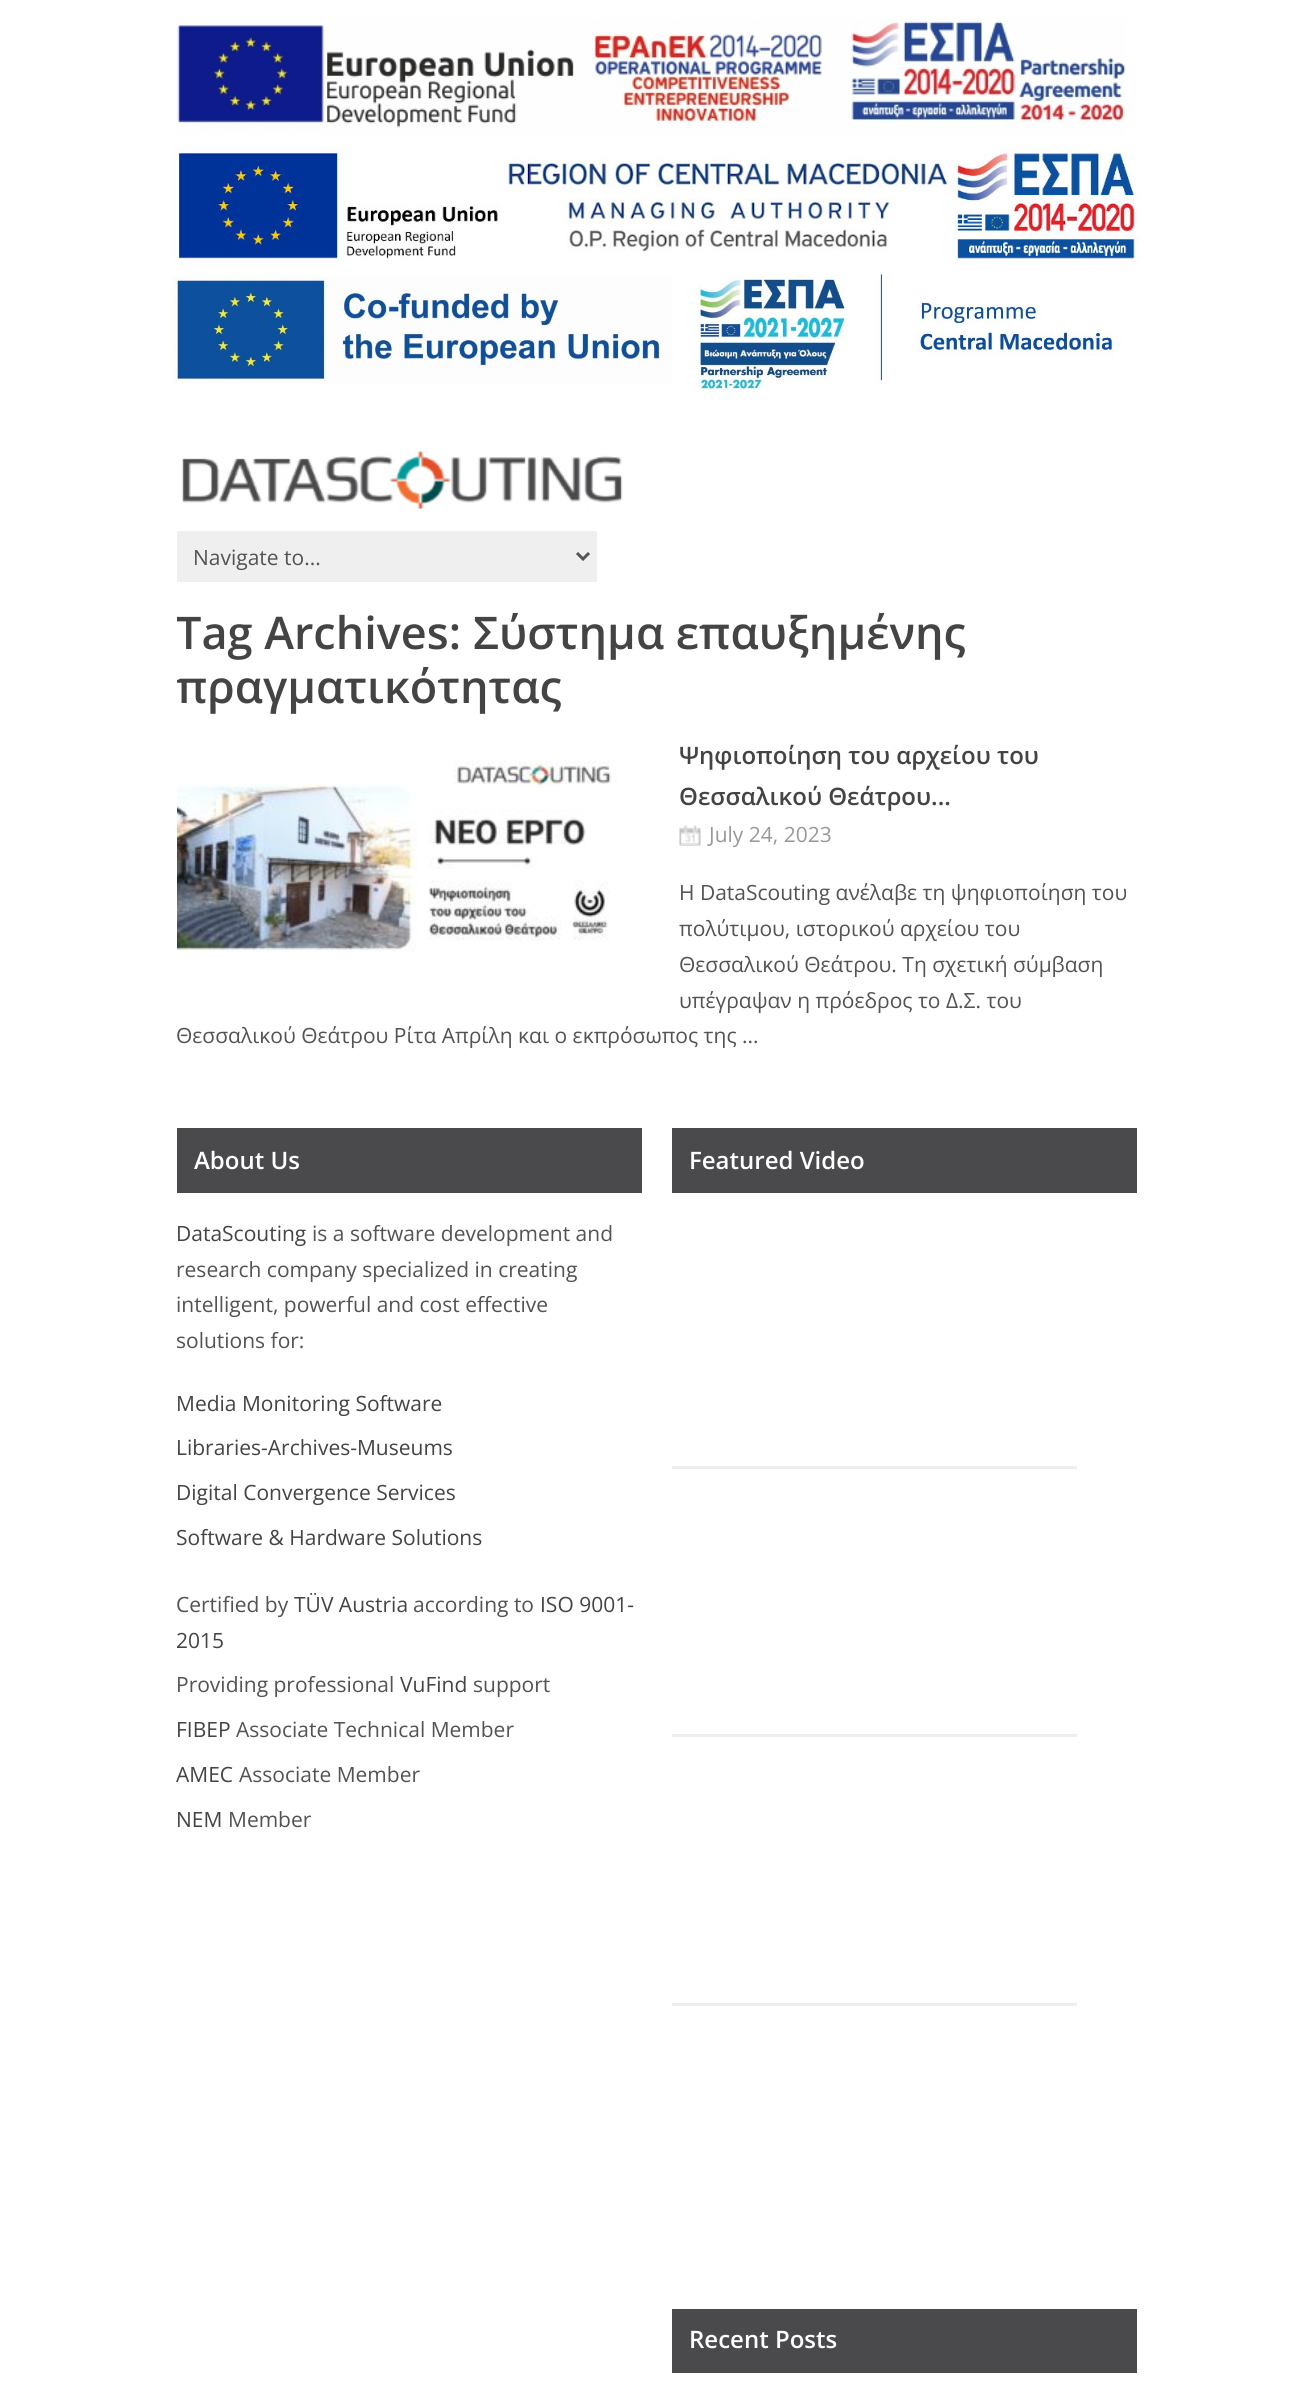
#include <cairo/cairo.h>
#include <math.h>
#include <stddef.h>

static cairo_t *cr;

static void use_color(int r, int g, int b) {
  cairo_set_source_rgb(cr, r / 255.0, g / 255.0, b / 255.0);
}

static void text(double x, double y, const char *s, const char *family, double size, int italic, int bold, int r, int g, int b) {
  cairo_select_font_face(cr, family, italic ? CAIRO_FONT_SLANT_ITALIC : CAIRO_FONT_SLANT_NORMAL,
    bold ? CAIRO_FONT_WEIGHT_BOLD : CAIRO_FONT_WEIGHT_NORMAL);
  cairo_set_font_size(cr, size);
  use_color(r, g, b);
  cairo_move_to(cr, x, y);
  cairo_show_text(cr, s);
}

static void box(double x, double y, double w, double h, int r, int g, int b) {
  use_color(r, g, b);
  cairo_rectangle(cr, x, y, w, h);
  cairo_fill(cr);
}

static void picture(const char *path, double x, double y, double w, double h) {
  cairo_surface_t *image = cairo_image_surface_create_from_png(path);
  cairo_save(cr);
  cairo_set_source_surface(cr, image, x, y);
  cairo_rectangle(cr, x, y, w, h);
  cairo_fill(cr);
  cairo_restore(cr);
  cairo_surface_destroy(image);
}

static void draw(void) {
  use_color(255, 255, 255);
  cairo_paint(cr);
  picture("img_01.png", 175, 18, 951, 118);
  picture("img_02.png", 172, 147, 968, 115);
  picture("img_03.png", 172, 274, 944, 119);
  picture("img_04.png", 182, 451, 441, 58);
  box(177, 531, 420, 51, 239, 239, 239);
  cairo_new_path(cr);
  cairo_move_to(cr, 577, 553);
  cairo_line_to(cr, 583, 559);
  cairo_line_to(cr, 589, 553);
  use_color(85, 85, 85);
  cairo_set_line_width(cr, 3);
  cairo_stroke(cr);
  picture("img_05.png", 679, 825, 22, 21);
  picture("img_06.png", 177, 760, 441, 193);
  box(177, 1128, 465, 65, 74, 74, 76);
  box(672, 1128, 465, 65, 74, 74, 76);
  box(672, 1466, 405, 3, 238, 238, 238);
  box(672, 1734, 405, 3, 238, 238, 238);
  box(672, 2003, 405, 3, 238, 238, 238);
  box(672, 2309, 465, 64, 74, 74, 76);
  text(193, 565, "Navigate to...", "Open Sans", 21, 0, 0, 83, 83, 83);
  cairo_save(cr);
  cairo_rectangle(cr, 177, 606, 960, 522);
  cairo_clip(cr);
  text(176, 649, "Tag Archives:", "Open Sans SemiBold", 45, 0, 0, 68, 68, 68);
  cairo_restore(cr);
  text(473, 649, "Σύστημα επαυξημένης", "Open Sans SemiBold", 45, 0, 0, 68, 68, 68);
  cairo_save(cr);
  cairo_rectangle(cr, 177, 606, 960, 522);
  cairo_clip(cr);
  text(176, 703, "πραγματικότητας", "Open Sans SemiBold", 45, 0, 0, 68, 68, 68);
  cairo_restore(cr);
  text(679, 764, "Ψηφιοποίηση του αρχείου του", "Open Sans SemiBold", 24, 0, 0, 68, 68, 68);
  text(679, 805, "Θεσσαλικού Θεάτρου...", "Open Sans SemiBold", 24, 0, 0, 68, 68, 68);
  text(709, 842, "July 24, 2023", "Open Sans", 21, 0, 0, 153, 153, 153);
  text(679, 900, "H DataScouting ανέλαβε τη ψηφιοποίηση του", "Open Sans", 21, 0, 0, 83, 83, 83);
  text(679, 936, "πολύτιμου, ιστορικού αρχείου του", "Open Sans", 21, 0, 0, 83, 83, 83);
  text(679, 972, "Θεσσαλικού Θεάτρου. Τη σχετική σύμβαση", "Open Sans", 21, 0, 0, 83, 83, 83);
  text(679, 1008, "υπέγραψαν η πρόεδρος το Δ.Σ. του", "Open Sans", 21, 0, 0, 83, 83, 83);
  text(176, 1043, "Θεσσαλικού Θεάτρου Ρίτα Απρίλη και ο εκπρόσωπος της ...", "Open Sans", 21, 0, 0, 83, 83, 83);
  text(194, 1169, "About Us", "Open Sans SemiBold", 24, 0, 0, 255, 255, 255);
  text(176, 1241, "DataScouting", "Open Sans", 21, 0, 0, 68, 68, 68);
  text(312, 1241, "is a software development and", "Open Sans", 21, 0, 0, 83, 83, 83);
  text(176, 1277, "research company specialized in creating", "Open Sans", 21, 0, 0, 83, 83, 83);
  text(176, 1312, "intelligent, powerful and cost effective", "Open Sans", 21, 0, 0, 83, 83, 83);
  text(176, 1348, "solutions for:", "Open Sans", 21, 0, 0, 83, 83, 83);
  text(176, 1411, "Media Monitoring Software", "Open Sans", 21, 0, 0, 68, 68, 68);
  text(176, 1455, "Libraries-Archives-Museums", "Open Sans", 21, 0, 0, 68, 68, 68);
  text(176, 1500, "Digital Convergence Services", "Open Sans", 21, 0, 0, 68, 68, 68);
  text(176, 1545, "Software & Hardware Solutions", "Open Sans", 21, 0, 0, 68, 68, 68);
  text(176, 1612, "Certified by", "Open Sans", 21, 0, 0, 83, 83, 83);
  text(294, 1612, "TÜV Austria", "Open Sans", 21, 0, 0, 68, 68, 68);
  text(413, 1612, "according to", "Open Sans", 21, 0, 0, 83, 83, 83);
  text(540, 1612, "ISO 9001-", "Open Sans", 21, 0, 0, 68, 68, 68);
  text(176, 1648, "2015", "Open Sans", 21, 0, 0, 68, 68, 68);
  text(176, 1692, "Providing professional", "Open Sans", 21, 0, 0, 83, 83, 83);
  text(400, 1692, "VuFind", "Open Sans", 21, 0, 0, 68, 68, 68);
  text(473, 1692, "support", "Open Sans", 21, 0, 0, 83, 83, 83);
  text(176, 1737, "FIBEP", "Open Sans", 21, 0, 0, 68, 68, 68);
  text(236, 1737, "Associate Technical Member", "Open Sans", 21, 0, 0, 83, 83, 83);
  text(176, 1782, "AMEC", "Open Sans", 21, 0, 0, 68, 68, 68);
  text(239, 1782, "Associate Member", "Open Sans", 21, 0, 0, 83, 83, 83);
  text(176, 1827, "NEM", "Open Sans", 21, 0, 0, 68, 68, 68);
  text(228, 1827, "Member", "Open Sans", 21, 0, 0, 83, 83, 83);
  text(689, 1169, "Featured Video", "Open Sans SemiBold", 24, 0, 0, 255, 255, 255);
  text(689, 2348, "Recent Posts", "Open Sans SemiBold", 24, 0, 0, 255, 255, 255);
}

int main(void) {
  cairo_surface_t *surface = cairo_image_surface_create(CAIRO_FORMAT_RGB24, 1312, 2403);
  cr = cairo_create(surface);
  cairo_font_options_t *options = cairo_font_options_create();
  cairo_font_options_set_hint_metrics(options, CAIRO_HINT_METRICS_OFF);
  cairo_font_options_set_hint_style(options, CAIRO_HINT_STYLE_NONE);
  cairo_set_font_options(cr, options);
  cairo_set_miter_limit(cr, 4);
  draw();
  cairo_surface_write_to_png(surface, "out.png");
  cairo_font_options_destroy(options);
  cairo_destroy(cr);
  cairo_surface_destroy(surface);
  return 0;
}
